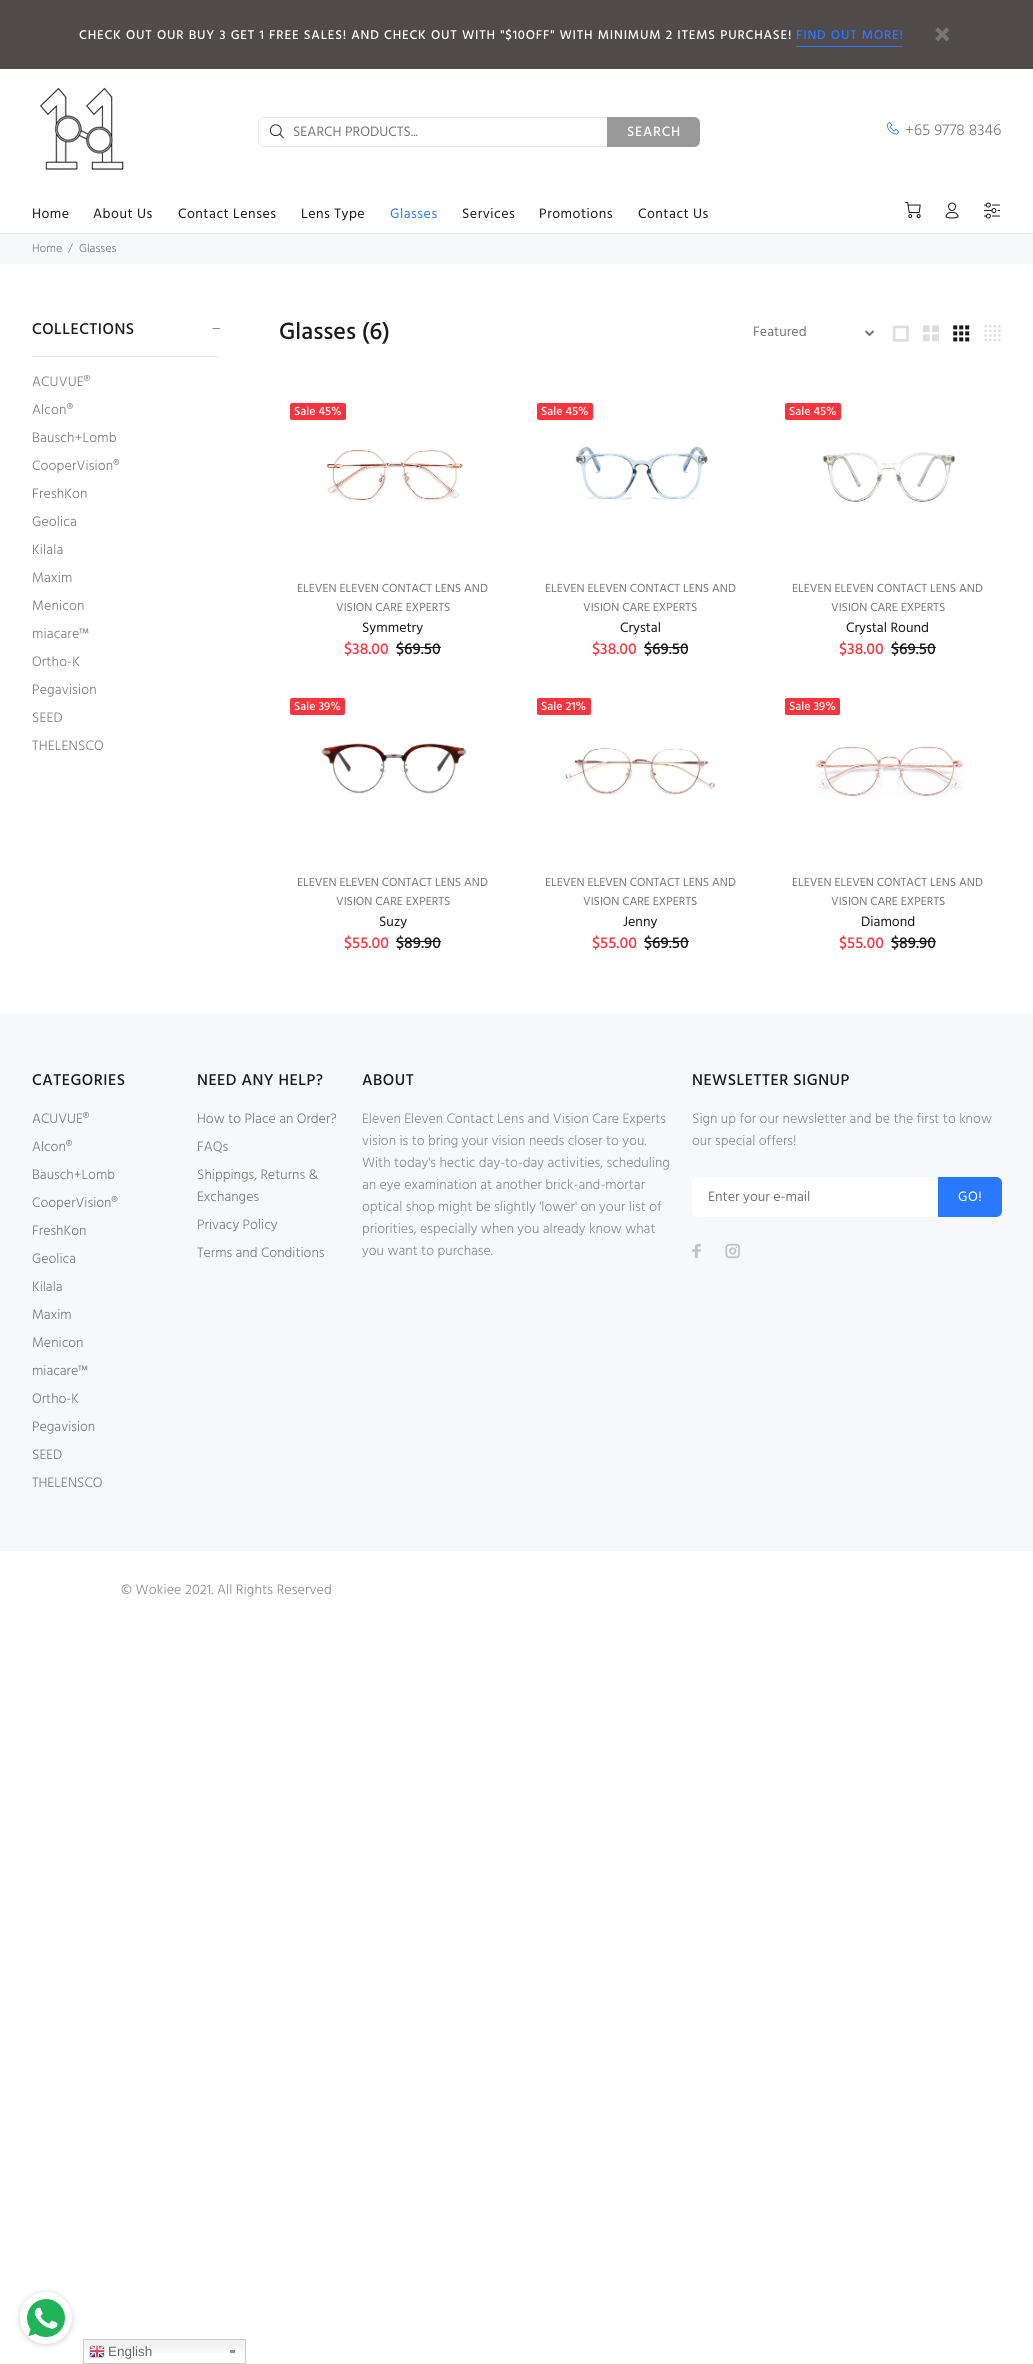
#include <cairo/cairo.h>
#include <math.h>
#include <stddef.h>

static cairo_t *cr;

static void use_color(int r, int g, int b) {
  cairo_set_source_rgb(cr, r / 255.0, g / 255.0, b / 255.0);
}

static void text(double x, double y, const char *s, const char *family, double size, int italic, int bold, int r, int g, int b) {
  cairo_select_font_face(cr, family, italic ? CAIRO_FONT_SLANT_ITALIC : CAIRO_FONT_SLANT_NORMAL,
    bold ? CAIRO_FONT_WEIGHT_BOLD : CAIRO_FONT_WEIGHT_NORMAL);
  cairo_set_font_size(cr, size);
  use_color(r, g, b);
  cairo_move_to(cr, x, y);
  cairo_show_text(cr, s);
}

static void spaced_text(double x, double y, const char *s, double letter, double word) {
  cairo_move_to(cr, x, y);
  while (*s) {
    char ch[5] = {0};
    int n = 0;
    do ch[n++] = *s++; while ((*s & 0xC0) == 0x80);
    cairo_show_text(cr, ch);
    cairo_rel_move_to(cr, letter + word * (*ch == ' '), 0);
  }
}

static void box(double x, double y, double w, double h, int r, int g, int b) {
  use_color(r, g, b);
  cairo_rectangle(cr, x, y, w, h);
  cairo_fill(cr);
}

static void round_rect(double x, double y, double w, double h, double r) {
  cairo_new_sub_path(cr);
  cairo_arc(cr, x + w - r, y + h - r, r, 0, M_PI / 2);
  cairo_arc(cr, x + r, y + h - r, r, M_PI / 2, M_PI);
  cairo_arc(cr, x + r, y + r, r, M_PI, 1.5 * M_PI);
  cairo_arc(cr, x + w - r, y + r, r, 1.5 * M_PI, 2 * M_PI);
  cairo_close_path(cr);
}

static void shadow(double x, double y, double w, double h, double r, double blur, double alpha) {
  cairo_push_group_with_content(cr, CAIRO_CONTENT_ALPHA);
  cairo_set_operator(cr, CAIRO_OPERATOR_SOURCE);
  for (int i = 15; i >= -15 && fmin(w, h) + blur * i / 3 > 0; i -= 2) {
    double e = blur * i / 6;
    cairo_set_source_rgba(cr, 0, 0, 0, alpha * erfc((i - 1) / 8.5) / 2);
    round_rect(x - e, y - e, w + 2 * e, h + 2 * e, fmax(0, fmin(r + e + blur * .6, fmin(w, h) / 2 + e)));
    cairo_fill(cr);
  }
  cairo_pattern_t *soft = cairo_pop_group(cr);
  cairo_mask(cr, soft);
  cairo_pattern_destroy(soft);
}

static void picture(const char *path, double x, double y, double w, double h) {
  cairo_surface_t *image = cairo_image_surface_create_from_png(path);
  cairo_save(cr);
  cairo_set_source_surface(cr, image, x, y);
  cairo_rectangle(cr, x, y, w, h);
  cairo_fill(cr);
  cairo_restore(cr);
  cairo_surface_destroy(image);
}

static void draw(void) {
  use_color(255, 255, 255);
  cairo_paint(cr);
  box(0, 233, 1033, 1, 233, 231, 231);
  box(0, 0, 1033, 69, 80, 74, 74);
  box(796, 46, 107, 1, 40, 121, 254);
  picture("img_01.png", 935, 27, 15, 15);
  picture("img_02.png", 40, 86, 84, 84);
  cairo_new_path(cr);
  cairo_move_to(cr, 264, 117.5);
  cairo_line_to(cr, 607.5, 117.5);
  cairo_line_to(cr, 607.5, 146.5);
  cairo_line_to(cr, 264, 146.5);
  cairo_curve_to(cr, 261, 146.5, 258.5, 144, 258.5, 141);
  cairo_line_to(cr, 258.5, 123);
  cairo_curve_to(cr, 258.5, 120, 261, 117.5, 264, 117.5);
  cairo_close_path(cr);
  use_color(233, 231, 231);
  cairo_set_line_width(cr, 1);
  cairo_stroke(cr);
  picture("img_03.png", 269, 124, 15, 15);
  use_color(153, 153, 153);
  cairo_new_path(cr);
  cairo_move_to(cr, 607, 117);
  cairo_line_to(cr, 694, 117);
  cairo_curve_to(cr, 697.5, 117, 700, 119.5, 700, 123);
  cairo_line_to(cr, 700, 141);
  cairo_curve_to(cr, 700, 144.5, 697.5, 147, 694, 147);
  cairo_line_to(cr, 607, 147);
  cairo_close_path(cr);
  cairo_fill(cr);
  picture("img_04.png", 886, 122, 14, 13);
  picture("img_05.png", 905, 202, 16, 16);
  picture("img_06.png", 945, 202, 14, 17);
  picture("img_07.png", 983, 202, 17, 17);
  box(0, 234, 1033, 30, 247, 248, 250);
  box(32, 356, 187, 1, 233, 231, 231);
  use_color(25, 25, 25);
  cairo_new_path(cr);
  cairo_move_to(cr, 220, 328.5);
  cairo_line_to(cr, 220, 329);
  cairo_line_to(cr, 212.5, 329);
  cairo_line_to(cr, 212.5, 328.5);
  cairo_close_path(cr);
  cairo_fill(cr);
  cairo_new_path(cr);
  cairo_move_to(cr, 865.5, 331);
  cairo_line_to(cr, 869.5, 335);
  cairo_line_to(cr, 873.5, 331);
  use_color(119, 119, 119);
  cairo_set_line_width(cr, 2);
  cairo_stroke(cr);
  picture("img_08.png", 892, 325, 17, 17);
  picture("img_09.png", 923, 325, 16, 17);
  picture("img_10.png", 953, 325, 17, 17);
  picture("img_11.png", 984, 325, 17, 17);
  use_color(248, 53, 62);
  round_rect(290, 403, 56, 17, 2);
  cairo_fill(cr);
  picture("img_12.png", 326, 450, 137, 52);
  box(396, 647, 45, 1, 25, 25, 25);
  use_color(248, 53, 62);
  round_rect(537, 403, 56, 17, 2);
  cairo_fill(cr);
  picture("img_13.png", 575, 446, 133, 54);
  box(644, 647, 44, 1, 25, 25, 25);
  use_color(248, 53, 62);
  round_rect(785, 403, 56, 17, 2);
  cairo_fill(cr);
  picture("img_14.png", 822, 452, 133, 51);
  box(891, 647, 45, 1, 25, 25, 25);
  use_color(248, 53, 62);
  round_rect(290, 698, 55, 17, 2);
  cairo_fill(cr);
  picture("img_15.png", 321, 743, 146, 51);
  box(396, 941, 45, 1, 25, 25, 25);
  use_color(248, 53, 62);
  round_rect(537, 698, 54, 17, 2);
  cairo_fill(cr);
  picture("img_16.png", 565, 748, 151, 47);
  box(644, 941, 45, 1, 25, 25, 25);
  use_color(248, 53, 62);
  round_rect(785, 698, 55, 17, 2);
  cairo_fill(cr);
  picture("img_17.png", 815, 746, 149, 51);
  box(891, 941, 45, 1, 25, 25, 25);
  box(0, 1014, 1033, 537, 247, 248, 250);
  use_color(255, 255, 255);
  cairo_new_path(cr);
  cairo_move_to(cr, 698, 1177);
  cairo_line_to(cr, 938, 1177);
  cairo_line_to(cr, 938, 1217);
  cairo_line_to(cr, 698, 1217);
  cairo_curve_to(cr, 694.5, 1217, 692, 1214.5, 692, 1211);
  cairo_line_to(cr, 692, 1183);
  cairo_curve_to(cr, 692, 1179.5, 694.5, 1177, 698, 1177);
  cairo_close_path(cr);
  cairo_fill(cr);
  use_color(40, 121, 254);
  cairo_new_path(cr);
  cairo_move_to(cr, 938, 1177);
  cairo_line_to(cr, 996, 1177);
  cairo_curve_to(cr, 999.5, 1177, 1002, 1179.5, 1002, 1183);
  cairo_line_to(cr, 1002, 1211);
  cairo_curve_to(cr, 1002, 1214.5, 999.5, 1217, 996, 1217);
  cairo_line_to(cr, 938, 1217);
  cairo_close_path(cr);
  cairo_fill(cr);
  picture("img_18.png", 692, 1243, 9, 16);
  picture("img_19.png", 725, 1243, 15, 16);
  use_color(27, 27, 27);
  shadow(20, 2293, 52, 52, 26, 3, 0.2);
  use_color(255, 255, 255);
  cairo_arc(cr, 46, 2318, 25.5, 0, 2 * M_PI);
  cairo_fill_preserve(cr);
  cairo_set_line_width(cr, 1);
  cairo_stroke(cr);
  picture("img_20.png", 27, 2299, 38, 38);
  picture("img_21.png", 84, 2340, 161, 13);
  box(230, 2350, 5, 3, 143, 143, 143);
  cairo_rectangle(cr, 83.5, 2339.5, 162, 24);
  use_color(204, 204, 204);
  cairo_stroke(cr);
  picture("img_22.png", 89, 2345, 16, 14);
  cairo_select_font_face(cr, "Hind Medium", CAIRO_FONT_SLANT_NORMAL, CAIRO_FONT_WEIGHT_NORMAL);
  cairo_set_font_size(cr, 13);
  use_color(255, 255, 255);
  spaced_text(79, 39, "CHECK OUT OUR BUY 3 GET 1 FREE SALES! AND CHECK OUT WITH \"$10OFF\" WITH MINIMUM 2 ITEMS PURCHASE!", 0.78, 0.4);
  use_color(40, 121, 254);
  spaced_text(796, 39, "FIND OUT MORE!", 0.78, 0.4);
  text(293, 136, "SEARCH PRODUCTS...", "Hind", 14, 0, 0, 119, 119, 119);
  cairo_select_font_face(cr, "Hind Medium", CAIRO_FONT_SLANT_NORMAL, CAIRO_FONT_WEIGHT_NORMAL);
  use_color(255, 255, 255);
  spaced_text(627, 136, "SEARCH", 0.75, 0);
  text(905, 135, "+65 9778 8346", "Hind Light", 16, 0, 0, 119, 119, 119);
  cairo_select_font_face(cr, "Hind", CAIRO_FONT_SLANT_NORMAL, CAIRO_FONT_WEIGHT_NORMAL);
  cairo_set_font_size(cr, 14);
  use_color(25, 25, 25);
  spaced_text(32, 218, "Home", 0.5, 0);
  spaced_text(93, 218, "About Us", 0.5, 0);
  spaced_text(178, 218, "Contact Lenses", 0.5, 0);
  spaced_text(301, 218, "Lens Type", 0.5, 0);
  use_color(40, 121, 254);
  spaced_text(390, 218, "Glasses", 0.5, 0);
  use_color(25, 25, 25);
  spaced_text(462, 218, "Services", 0.5, 0);
  spaced_text(539, 218, "Promotions", 0.5, 0);
  spaced_text(638, 218, "Contact Us", 0.5, 0);
  text(32, 252, "Home", "Hind Light", 12, 0, 0, 119, 119, 119);
  text(68, 252, "/", "Hind Light", 12, 0, 0, 119, 119, 119);
  text(79, 252, "Glasses", "Hind Light", 12, 0, 0, 119, 119, 119);
  cairo_select_font_face(cr, "Hind Medium", CAIRO_FONT_SLANT_NORMAL, CAIRO_FONT_WEIGHT_NORMAL);
  cairo_set_font_size(cr, 16);
  use_color(25, 25, 25);
  spaced_text(32, 334, "COLLECTIONS", 0.5, 0);
  cairo_select_font_face(cr, "Hind Light", CAIRO_FONT_SLANT_NORMAL, CAIRO_FONT_WEIGHT_NORMAL);
  cairo_set_font_size(cr, 14);
  use_color(119, 119, 119);
  spaced_text(32, 386, "ACUVUE®", 0.15, 0);
  spaced_text(32, 414, "Alcon®", 0.15, 0);
  spaced_text(32, 442, "Bausch+Lomb", 0.15, 0);
  spaced_text(32, 470, "CooperVision®", 0.15, 0);
  spaced_text(32, 498, "FreshKon", 0.15, 0);
  spaced_text(32, 526, "Geolica", 0.15, 0);
  spaced_text(32, 554, "Kilala", 0.15, 0);
  spaced_text(32, 582, "Maxim", 0.15, 0);
  spaced_text(32, 610, "Menicon", 0.15, 0);
  spaced_text(32, 638, "miacare™", 0.15, 0);
  spaced_text(32, 666, "Ortho-K", 0.15, 0);
  spaced_text(32, 694, "Pegavision", 0.15, 0);
  spaced_text(32, 722, "SEED", 0.15, 0);
  spaced_text(32, 750, "THELENSCO", 0.15, 0);
  text(279, 339, "Glasses (6)", "Hind Medium", 24, 0, 0, 25, 25, 25);
  text(753, 336, "Featured", "Hind", 14, 0, 0, 119, 119, 119);
  text(294, 415, "Sale 45%", "Hind Medium", 12, 0, 0, 255, 255, 255);
  text(297, 592, "ELEVEN ELEVEN CONTACT LENS AND", "Hind", 12, 0, 0, 119, 119, 119);
  text(336, 611, "VISION CARE EXPERTS", "Hind", 12, 0, 0, 119, 119, 119);
  text(362, 632, "Symmetry", "Hind", 14, 0, 0, 25, 25, 25);
  text(344, 654, "$38.00", "Hind Medium", 16, 0, 0, 248, 53, 62);
  text(396, 654, "$69.50", "Hind Medium", 16, 0, 0, 25, 25, 25);
  text(541, 415, "Sale 45%", "Hind Medium", 12, 0, 0, 255, 255, 255);
  text(545, 592, "ELEVEN ELEVEN CONTACT LENS AND", "Hind", 12, 0, 0, 119, 119, 119);
  text(583, 611, "VISION CARE EXPERTS", "Hind", 12, 0, 0, 119, 119, 119);
  text(620, 632, "Crystal", "Hind", 14, 0, 0, 25, 25, 25);
  text(592, 654, "$38.00", "Hind Medium", 16, 0, 0, 248, 53, 62);
  text(644, 654, "$69.50", "Hind Medium", 16, 0, 0, 25, 25, 25);
  text(789, 415, "Sale 45%", "Hind Medium", 12, 0, 0, 255, 255, 255);
  text(792, 592, "ELEVEN ELEVEN CONTACT LENS AND", "Hind", 12, 0, 0, 119, 119, 119);
  text(831, 611, "VISION CARE EXPERTS", "Hind", 12, 0, 0, 119, 119, 119);
  text(846, 632, "Crystal Round", "Hind", 14, 0, 0, 25, 25, 25);
  text(839, 654, "$38.00", "Hind Medium", 16, 0, 0, 248, 53, 62);
  text(891, 654, "$69.50", "Hind Medium", 16, 0, 0, 25, 25, 25);
  text(294, 710, "Sale 39%", "Hind Medium", 12, 0, 0, 255, 255, 255);
  text(297, 886, "ELEVEN ELEVEN CONTACT LENS AND", "Hind", 12, 0, 0, 119, 119, 119);
  text(336, 905, "VISION CARE EXPERTS", "Hind", 12, 0, 0, 119, 119, 119);
  text(379, 926, "Suzy", "Hind", 14, 0, 0, 25, 25, 25);
  text(344, 948, "$55.00", "Hind Medium", 16, 0, 0, 248, 53, 62);
  text(396, 948, "$89.90", "Hind Medium", 16, 0, 0, 25, 25, 25);
  text(541, 710, "Sale 21%", "Hind Medium", 12, 0, 0, 255, 255, 255);
  text(545, 886, "ELEVEN ELEVEN CONTACT LENS AND", "Hind", 12, 0, 0, 119, 119, 119);
  text(583, 905, "VISION CARE EXPERTS", "Hind", 12, 0, 0, 119, 119, 119);
  text(623, 926, "Jenny", "Hind", 14, 0, 0, 25, 25, 25);
  text(592, 948, "$55.00", "Hind Medium", 16, 0, 0, 248, 53, 62);
  text(644, 948, "$69.50", "Hind Medium", 16, 0, 0, 25, 25, 25);
  text(789, 710, "Sale 39%", "Hind Medium", 12, 0, 0, 255, 255, 255);
  text(792, 886, "ELEVEN ELEVEN CONTACT LENS AND", "Hind", 12, 0, 0, 119, 119, 119);
  text(831, 905, "VISION CARE EXPERTS", "Hind", 12, 0, 0, 119, 119, 119);
  text(861, 926, "Diamond", "Hind", 14, 0, 0, 25, 25, 25);
  text(839, 948, "$55.00", "Hind Medium", 16, 0, 0, 248, 53, 62);
  text(891, 948, "$89.90", "Hind Medium", 16, 0, 0, 25, 25, 25);
  spaced_text(32, 1085, "CATEGORIES", 0.5, 0);
  text(32, 1123, "ACUVUE®", "Hind Light", 14, 0, 0, 119, 119, 119);
  text(32, 1151, "Alcon®", "Hind Light", 14, 0, 0, 119, 119, 119);
  text(32, 1179, "Bausch+Lomb", "Hind Light", 14, 0, 0, 119, 119, 119);
  text(32, 1207, "CooperVision®", "Hind Light", 14, 0, 0, 119, 119, 119);
  text(32, 1235, "FreshKon", "Hind Light", 14, 0, 0, 119, 119, 119);
  text(32, 1263, "Geolica", "Hind Light", 14, 0, 0, 119, 119, 119);
  text(32, 1291, "Kilala", "Hind Light", 14, 0, 0, 119, 119, 119);
  text(32, 1319, "Maxim", "Hind Light", 14, 0, 0, 119, 119, 119);
  text(32, 1347, "Menicon", "Hind Light", 14, 0, 0, 119, 119, 119);
  text(32, 1375, "miacare™", "Hind Light", 14, 0, 0, 119, 119, 119);
  text(32, 1403, "Ortho-K", "Hind Light", 14, 0, 0, 119, 119, 119);
  text(32, 1431, "Pegavision", "Hind Light", 14, 0, 0, 119, 119, 119);
  text(32, 1459, "SEED", "Hind Light", 14, 0, 0, 119, 119, 119);
  text(32, 1487, "THELENSCO", "Hind Light", 14, 0, 0, 119, 119, 119);
  cairo_select_font_face(cr, "Hind Medium", CAIRO_FONT_SLANT_NORMAL, CAIRO_FONT_WEIGHT_NORMAL);
  cairo_set_font_size(cr, 16);
  use_color(25, 25, 25);
  spaced_text(197, 1085, "NEED ANY HELP?", 0.5, 0);
  text(197, 1123, "How to Place an Order?", "Hind Light", 14, 0, 0, 119, 119, 119);
  text(197, 1151, "FAQs", "Hind Light", 14, 0, 0, 119, 119, 119);
  text(197, 1179, "Shippings, Returns &", "Hind Light", 14, 0, 0, 119, 119, 119);
  text(197, 1201, "Exchanges", "Hind Light", 14, 0, 0, 119, 119, 119);
  text(197, 1229, "Privacy Policy", "Hind Light", 14, 0, 0, 119, 119, 119);
  text(197, 1257, "Terms and Conditions", "Hind Light", 14, 0, 0, 119, 119, 119);
  cairo_select_font_face(cr, "Hind Medium", CAIRO_FONT_SLANT_NORMAL, CAIRO_FONT_WEIGHT_NORMAL);
  cairo_set_font_size(cr, 16);
  use_color(25, 25, 25);
  spaced_text(362, 1085, "ABOUT", 0.5, 0);
  text(362, 1123, "Eleven Eleven Contact Lens and Vision Care Experts", "Hind Light", 14, 0, 0, 136, 136, 136);
  text(362, 1145, "vision is to bring your vision needs closer to you.", "Hind Light", 14, 0, 0, 136, 136, 136);
  text(362, 1167, "With today's hectic day-to-day activities, scheduling", "Hind Light", 14, 0, 0, 136, 136, 136);
  text(362, 1189, "an eye examination at another brick-and-mortar", "Hind Light", 14, 0, 0, 136, 136, 136);
  text(362, 1211, "optical shop might be slightly 'lower' on your list of", "Hind Light", 14, 0, 0, 136, 136, 136);
  text(362, 1233, "priorities, especially when you already know what", "Hind Light", 14, 0, 0, 136, 136, 136);
  text(362, 1255, "you want to purchase.", "Hind Light", 14, 0, 0, 136, 136, 136);
  cairo_select_font_face(cr, "Hind Medium", CAIRO_FONT_SLANT_NORMAL, CAIRO_FONT_WEIGHT_NORMAL);
  cairo_set_font_size(cr, 16);
  use_color(25, 25, 25);
  spaced_text(692, 1085, "NEWSLETTER SIGNUP", 0.5, 0);
  text(692, 1123, "Sign up for our newsletter and be the first to know", "Hind Light", 14, 0, 0, 136, 136, 136);
  text(692, 1145, "our special offers!", "Hind Light", 14, 0, 0, 136, 136, 136);
  text(708, 1201, "Enter your e-mail", "Hind", 14, 0, 0, 119, 119, 119);
  use_color(255, 255, 255);
  spaced_text(958, 1201, "GO!", 0.5, 0);
  cairo_select_font_face(cr, "Hind Light", CAIRO_FONT_SLANT_NORMAL, CAIRO_FONT_WEIGHT_NORMAL);
  use_color(136, 136, 136);
  spaced_text(121, 1594, "© Wokiee 2021. All Rights Reserved", 0.15, 0);
  text(108, 2356, "English", "Liberation Sans", 13.5, 0, 0, 102, 102, 102);
}

int main(void) {
  cairo_surface_t *surface = cairo_image_surface_create(CAIRO_FORMAT_RGB24, 1033, 2364);
  cr = cairo_create(surface);
  cairo_font_options_t *options = cairo_font_options_create();
  cairo_font_options_set_hint_metrics(options, CAIRO_HINT_METRICS_OFF);
  cairo_font_options_set_hint_style(options, CAIRO_HINT_STYLE_NONE);
  cairo_set_font_options(cr, options);
  cairo_set_miter_limit(cr, 4);
  draw();
  cairo_surface_write_to_png(surface, "out.png");
  cairo_font_options_destroy(options);
  cairo_destroy(cr);
  cairo_surface_destroy(surface);
  return 0;
}
